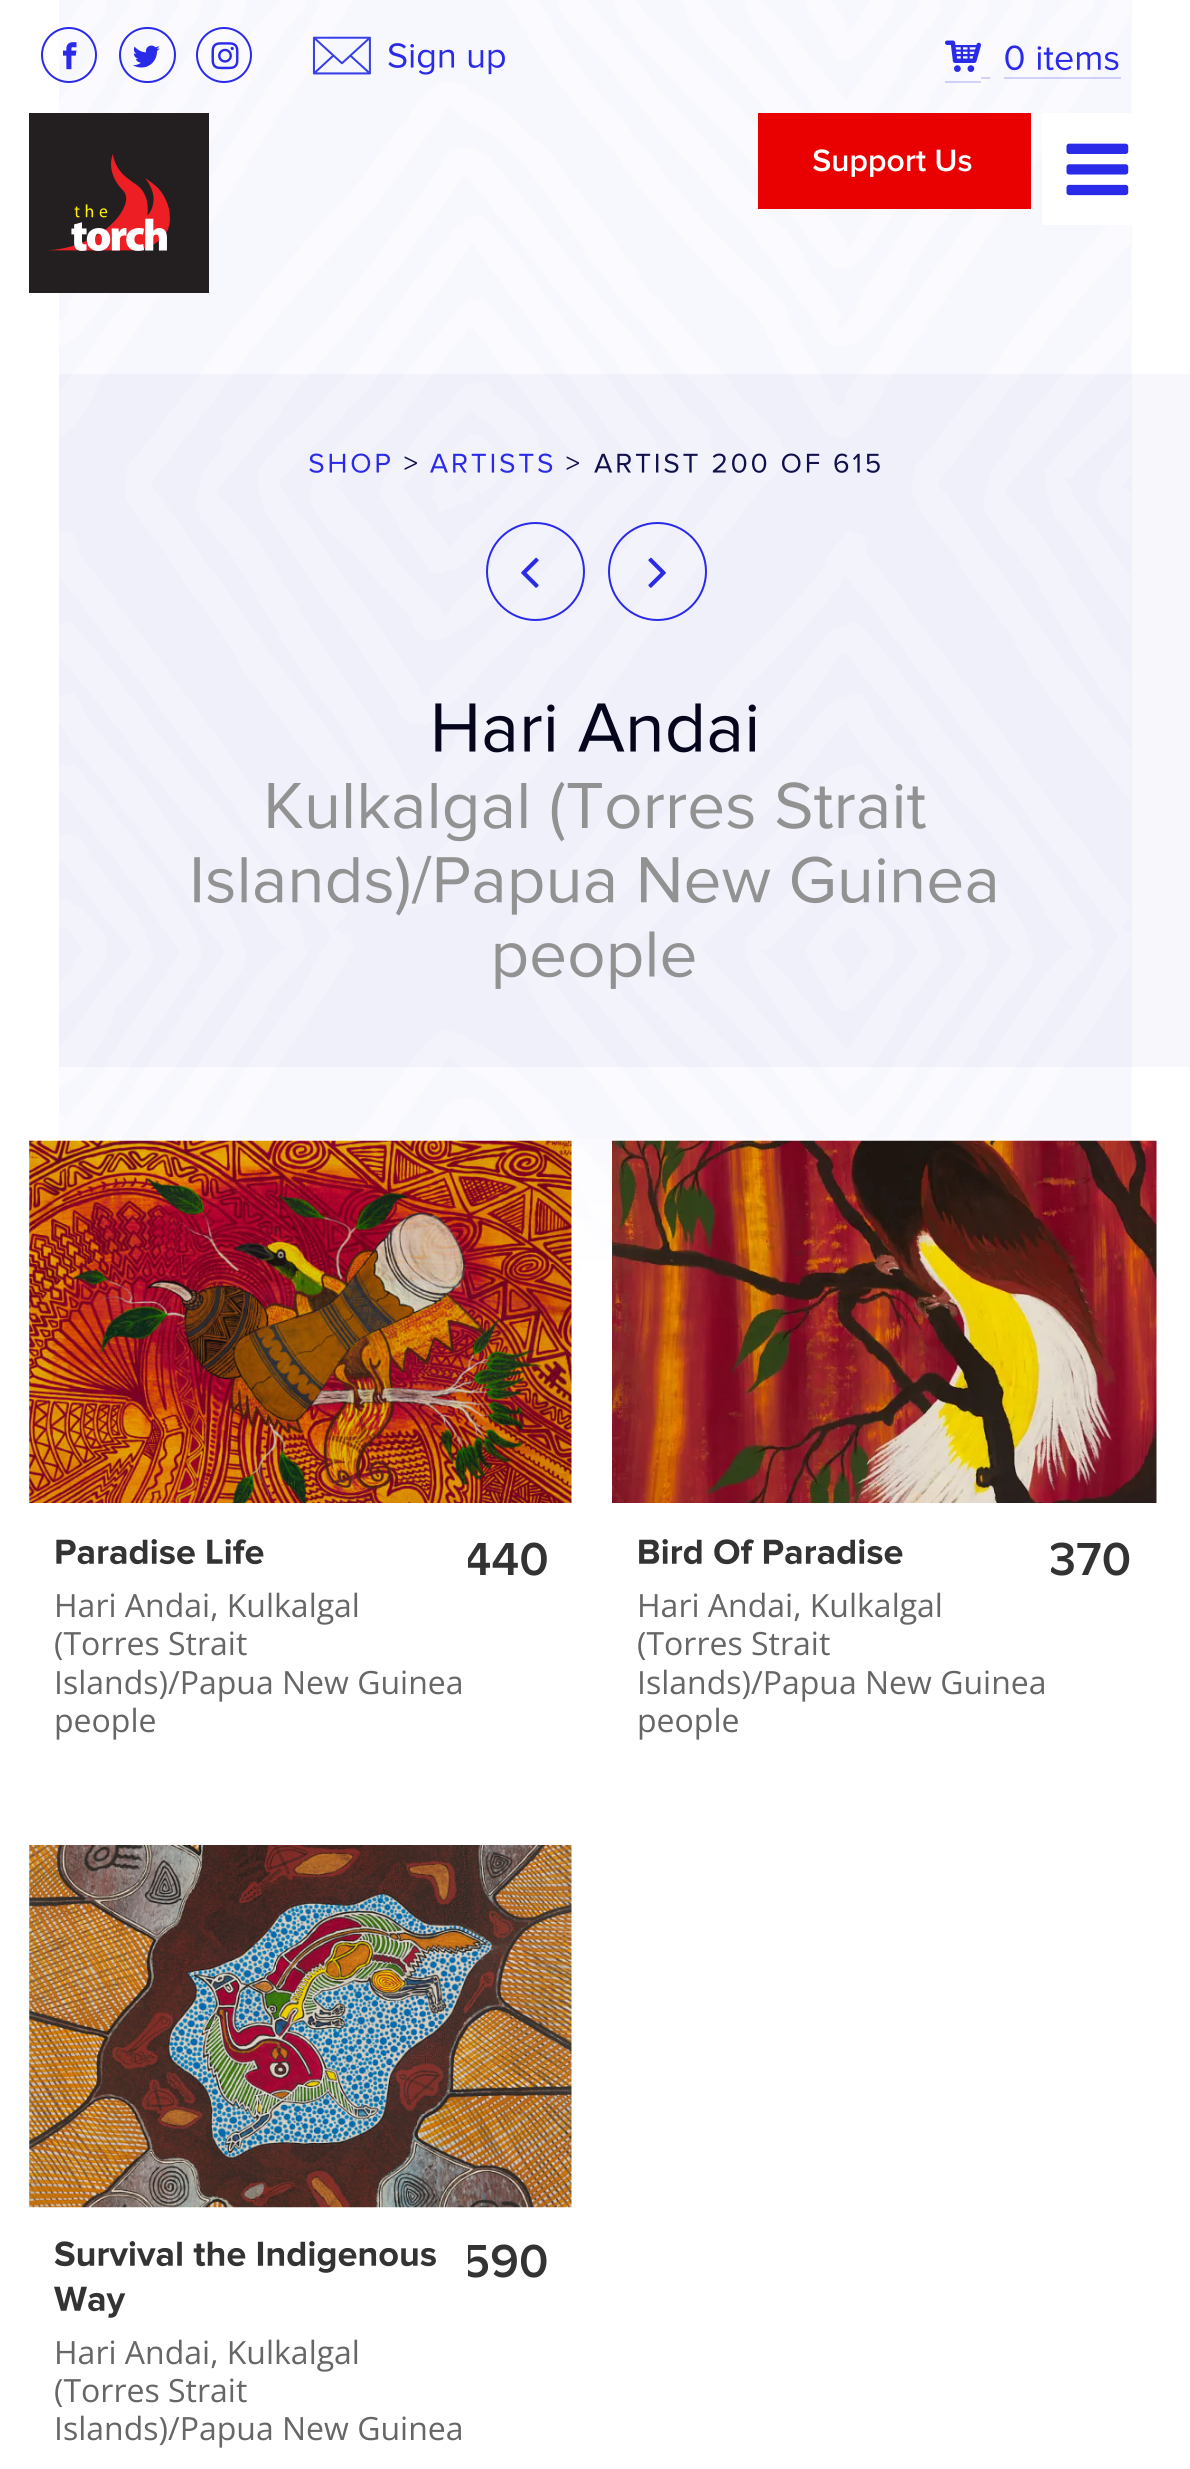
#include <cairo/cairo.h>
#include <math.h>
#include <stddef.h>

static cairo_t *cr;

static void use_color(int r, int g, int b) {
  cairo_set_source_rgb(cr, r / 255.0, g / 255.0, b / 255.0);
}

static void text(double x, double y, const char *s, const char *family, double size, int italic, int bold, int r, int g, int b) {
  cairo_select_font_face(cr, family, italic ? CAIRO_FONT_SLANT_ITALIC : CAIRO_FONT_SLANT_NORMAL,
    bold ? CAIRO_FONT_WEIGHT_BOLD : CAIRO_FONT_WEIGHT_NORMAL);
  cairo_set_font_size(cr, size);
  use_color(r, g, b);
  cairo_move_to(cr, x, y);
  cairo_show_text(cr, s);
}

static void box(double x, double y, double w, double h, int r, int g, int b) {
  use_color(r, g, b);
  cairo_rectangle(cr, x, y, w, h);
  cairo_fill(cr);
}

static void round_rect(double x, double y, double w, double h, double r) {
  cairo_new_sub_path(cr);
  cairo_arc(cr, x + w - r, y + h - r, r, 0, M_PI / 2);
  cairo_arc(cr, x + r, y + h - r, r, M_PI / 2, M_PI);
  cairo_arc(cr, x + r, y + r, r, M_PI, 1.5 * M_PI);
  cairo_arc(cr, x + w - r, y + r, r, 1.5 * M_PI, 2 * M_PI);
  cairo_close_path(cr);
}

static void picture(const char *path, double x, double y, double w, double h) {
  cairo_surface_t *image = cairo_image_surface_create_from_png(path);
  cairo_save(cr);
  cairo_set_source_surface(cr, image, x, y);
  cairo_rectangle(cr, x, y, w, h);
  cairo_fill(cr);
  cairo_restore(cr);
  cairo_surface_destroy(image);
}

static void draw(void) {
  cairo_pattern_t *gradient;
  use_color(255, 255, 255);
  cairo_paint(cr);
  box(59, 0, 1073, 1287, 247, 247, 254);
  picture("img_01.png", 59, 0, 1072, 1287);
  cairo_arc(cr, 69, 55, 27, 0, 2 * M_PI);
  use_color(42, 42, 233);
  cairo_stroke(cr);
  picture("img_02.png", 63, 42, 14, 28);
  round_rect(120, 28, 55, 54, 27);
  cairo_stroke(cr);
  picture("img_03.png", 133, 45, 27, 23);
  cairo_arc(cr, 224, 55, 27, 0, 2 * M_PI);
  cairo_stroke(cr);
  picture("img_04.png", 211, 42, 28, 28);
  picture("img_05.png", 312, 36, 59, 39);
  picture("img_06.png", 388, 43, 117, 32);
  cairo_set_source_rgba(cr, 0.165, 0.165, 0.914, 0.2);
  cairo_rectangle(cr, 945, 81, 36, 2);
  cairo_fill(cr);
  cairo_rectangle(cr, 981, 77, 9, 2);
  cairo_fill(cr);
  cairo_rectangle(cr, 1004, 77, 22, 2);
  cairo_fill(cr);
  cairo_rectangle(cr, 1026, 77, 95, 2);
  cairo_fill(cr);
  picture("img_07.png", 945, 40, 36, 32);
  picture("img_08.png", 1005, 45, 19, 26);
  picture("img_09.png", 1037, 46, 82, 25);
  picture("img_10.png", 29, 113, 180, 180);
  box(758, 113, 273, 96, 233, 0, 0);
  picture("img_11.png", 813, 149, 159, 28);
  box(1042, 113, 90, 112, 255, 255, 255);
  picture("img_12.png", 1066, 143, 63, 53);
  cairo_set_source_rgba(cr, 0.729, 0.729, 0.91, 0.12);
  cairo_rectangle(cr, 59, 374, 1131, 693);
  cairo_fill(cr);
  picture("img_13.png", 309, 453, 81, 20);
  picture("img_14.png", 404, 456, 13, 14);
  picture("img_15.png", 430, 453, 123, 20);
  picture("img_16.png", 566, 456, 13, 14);
  picture("img_17.png", 594, 453, 286, 20);
  cairo_arc(cr, 535.5, 571.5, 48.5, 0, 2 * M_PI);
  use_color(42, 42, 233);
  cairo_stroke(cr);
  picture("img_18.png", 521, 557, 18, 31);
  cairo_arc(cr, 657.5, 571.5, 48.5, 0, 2 * M_PI);
  cairo_stroke(cr);
  picture("img_19.png", 648, 557, 18, 31);
  picture("img_20.png", 435, 703, 321, 50);
  picture("img_21.png", 268, 781, 658, 61);
  picture("img_22.png", 194, 855, 801, 61);
  picture("img_23.png", 495, 931, 200, 58);
  gradient = cairo_pattern_create_linear(595, 1066, 595, 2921);
  cairo_pattern_add_color_stop_rgba(gradient, 0, 1, 1, 1, 0);
  cairo_pattern_add_color_stop_rgba(gradient, 0.12, 1, 1, 1, 1);
  cairo_pattern_add_color_stop_rgba(gradient, 0.88, 1, 1, 1, 1);
  cairo_pattern_add_color_stop_rgba(gradient, 1, 1, 1, 1, 0);
  cairo_set_source(cr, gradient);
  cairo_pattern_destroy(gradient);
  cairo_rectangle(cr, 59, 1138, 1073, 149);
  cairo_fill(cr);
  box(59, 1141, 513, 76, 255, 255, 255);
  picture("img_24.png", 29, 1140, 543, 363);
  picture("img_25.png", 468, 1542, 79, 34);
  picture("img_26.png", 56, 1539, 208, 26);
  box(612, 1141, 520, 76, 255, 255, 255);
  picture("img_27.png", 612, 1140, 545, 363);
  picture("img_28.png", 1051, 1542, 79, 34);
  picture("img_29.png", 639, 1539, 264, 26);
  picture("img_30.png", 29, 1845, 543, 363);
  picture("img_31.png", 468, 2244, 79, 34);
  picture("img_32.png", 54, 2241, 382, 32);
  picture("img_33.png", 54, 2286, 72, 32);
  text(54, 1617, "Hari Andai, Kulkalgal", "Open Sans", 32, 0, 0, 102, 102, 102);
  text(54, 1655, "(Torres Strait", "Open Sans", 32, 0, 0, 102, 102, 102);
  text(54, 1694, "Islands)/Papua New Guinea", "Open Sans", 32, 0, 0, 102, 102, 102);
  text(54, 1732, "people", "Open Sans", 32, 0, 0, 102, 102, 102);
  text(637, 1617, "Hari Andai, Kulkalgal", "Open Sans", 32, 0, 0, 102, 102, 102);
  text(637, 1655, "(Torres Strait", "Open Sans", 32, 0, 0, 102, 102, 102);
  text(637, 1694, "Islands)/Papua New Guinea", "Open Sans", 32, 0, 0, 102, 102, 102);
  text(637, 1732, "people", "Open Sans", 32, 0, 0, 102, 102, 102);
  text(54, 2364, "Hari Andai, Kulkalgal", "Open Sans", 32, 0, 0, 102, 102, 102);
  text(54, 2402, "(Torres Strait", "Open Sans", 32, 0, 0, 102, 102, 102);
  text(54, 2440, "Islands)/Papua New Guinea", "Open Sans", 32, 0, 0, 102, 102, 102);
}

int main(void) {
  cairo_surface_t *surface = cairo_image_surface_create(CAIRO_FORMAT_RGB24, 1190, 2469);
  cr = cairo_create(surface);
  cairo_font_options_t *options = cairo_font_options_create();
  cairo_font_options_set_hint_metrics(options, CAIRO_HINT_METRICS_OFF);
  cairo_font_options_set_hint_style(options, CAIRO_HINT_STYLE_NONE);
  cairo_set_font_options(cr, options);
  cairo_set_miter_limit(cr, 4);
  draw();
  cairo_surface_write_to_png(surface, "out.png");
  cairo_font_options_destroy(options);
  cairo_destroy(cr);
  cairo_surface_destroy(surface);
  return 0;
}
